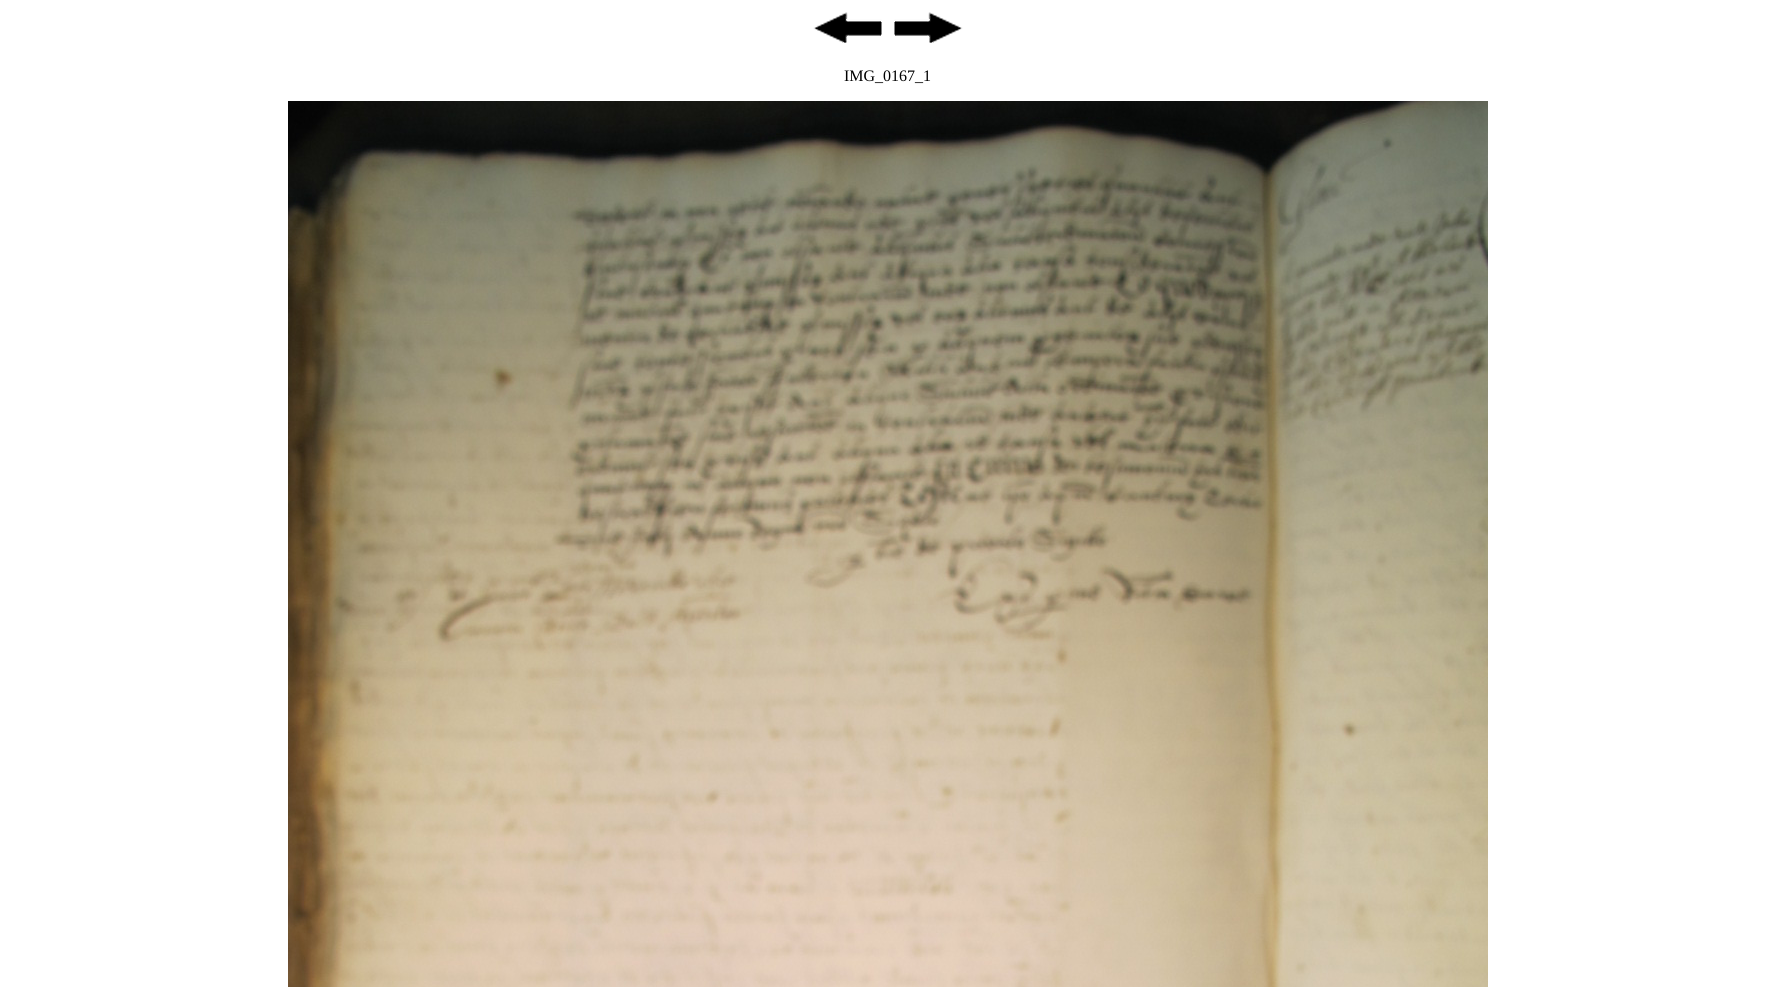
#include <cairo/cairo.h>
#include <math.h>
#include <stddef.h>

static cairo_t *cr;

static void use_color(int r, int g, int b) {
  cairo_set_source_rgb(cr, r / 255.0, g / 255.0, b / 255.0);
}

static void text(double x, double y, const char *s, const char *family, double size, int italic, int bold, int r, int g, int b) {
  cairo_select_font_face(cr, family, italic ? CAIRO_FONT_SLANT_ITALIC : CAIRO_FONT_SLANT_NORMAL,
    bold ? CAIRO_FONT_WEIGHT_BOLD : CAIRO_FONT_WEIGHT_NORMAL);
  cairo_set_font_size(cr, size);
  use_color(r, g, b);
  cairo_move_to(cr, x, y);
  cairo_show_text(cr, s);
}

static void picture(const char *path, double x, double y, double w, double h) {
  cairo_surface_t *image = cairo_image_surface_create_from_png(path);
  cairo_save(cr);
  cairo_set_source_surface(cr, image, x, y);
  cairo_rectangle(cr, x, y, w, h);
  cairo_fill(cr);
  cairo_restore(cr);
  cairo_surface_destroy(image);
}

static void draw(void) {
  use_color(255, 255, 255);
  cairo_paint(cr);
  picture("img_01.png", 813, 12, 69, 31);
  picture("img_02.png", 894, 12, 69, 31);
  picture("img_03.png", 288, 101, 1200, 886);
  text(844, 81, "IMG_0167_1", "Liberation Serif", 16, 0, 0, 0, 0, 0);
}

int main(void) {
  cairo_surface_t *surface = cairo_image_surface_create(CAIRO_FORMAT_RGB24, 1776, 987);
  cr = cairo_create(surface);
  cairo_font_options_t *options = cairo_font_options_create();
  cairo_font_options_set_hint_metrics(options, CAIRO_HINT_METRICS_OFF);
  cairo_font_options_set_hint_style(options, CAIRO_HINT_STYLE_NONE);
  cairo_set_font_options(cr, options);
  cairo_set_miter_limit(cr, 4);
  draw();
  cairo_surface_write_to_png(surface, "out.png");
  cairo_font_options_destroy(options);
  cairo_destroy(cr);
  cairo_surface_destroy(surface);
  return 0;
}
